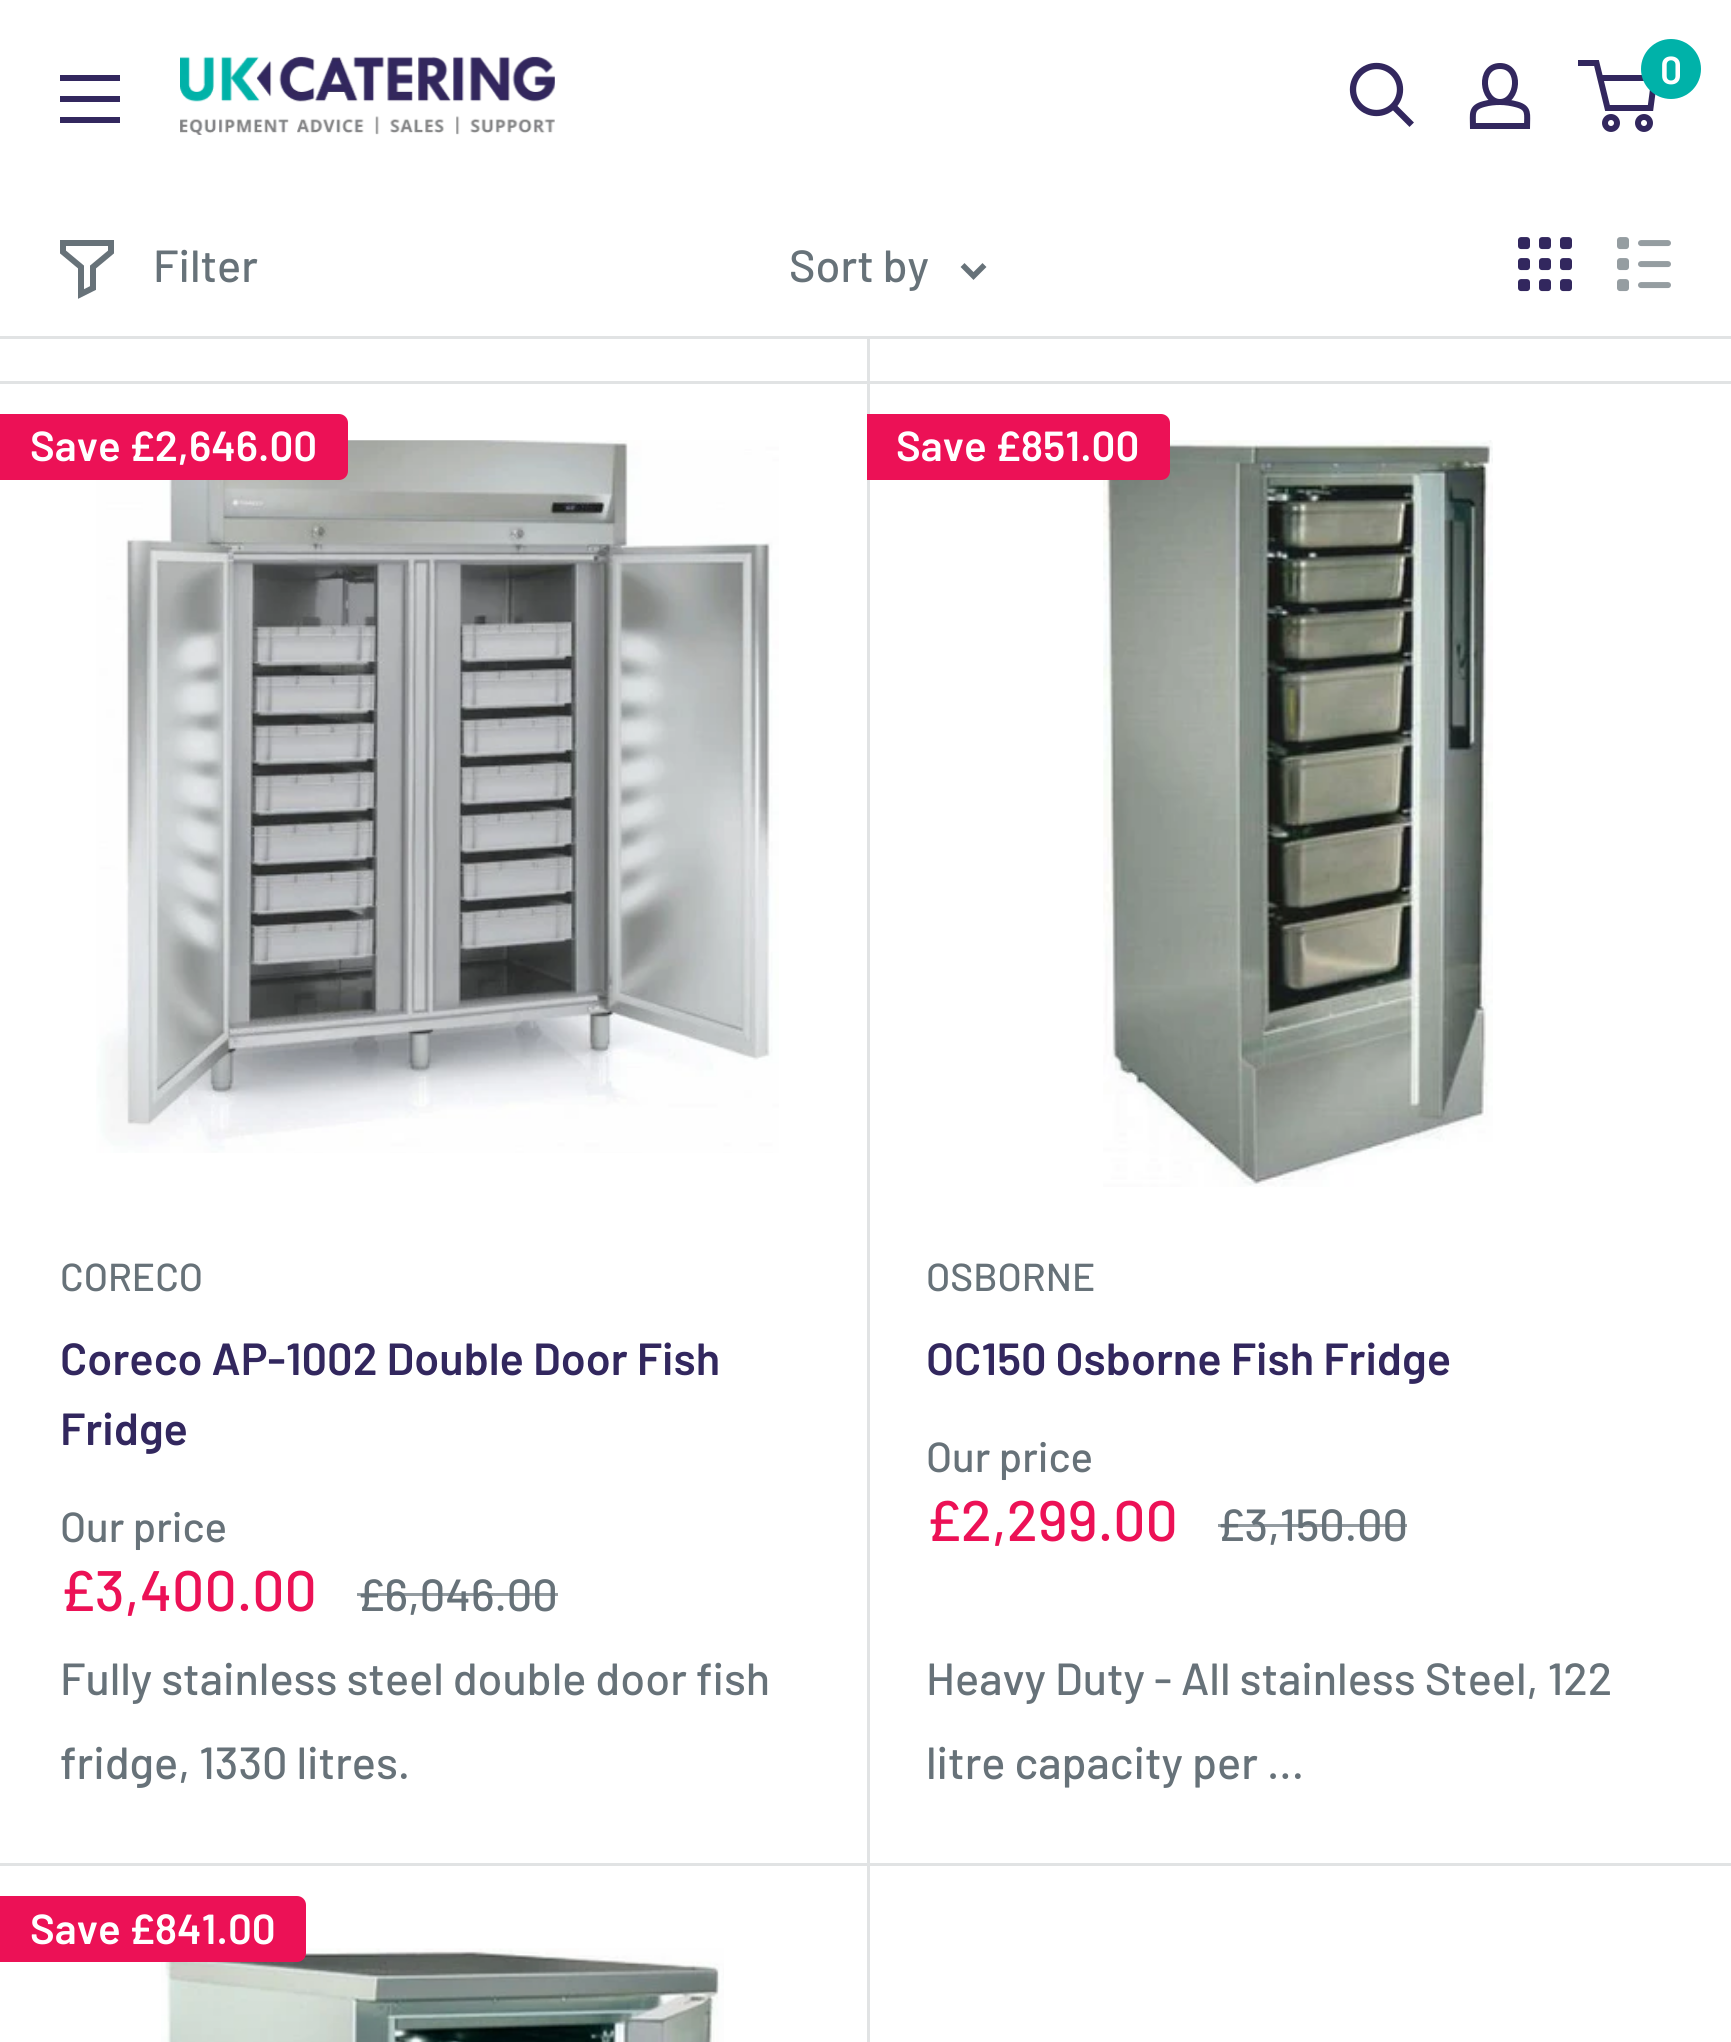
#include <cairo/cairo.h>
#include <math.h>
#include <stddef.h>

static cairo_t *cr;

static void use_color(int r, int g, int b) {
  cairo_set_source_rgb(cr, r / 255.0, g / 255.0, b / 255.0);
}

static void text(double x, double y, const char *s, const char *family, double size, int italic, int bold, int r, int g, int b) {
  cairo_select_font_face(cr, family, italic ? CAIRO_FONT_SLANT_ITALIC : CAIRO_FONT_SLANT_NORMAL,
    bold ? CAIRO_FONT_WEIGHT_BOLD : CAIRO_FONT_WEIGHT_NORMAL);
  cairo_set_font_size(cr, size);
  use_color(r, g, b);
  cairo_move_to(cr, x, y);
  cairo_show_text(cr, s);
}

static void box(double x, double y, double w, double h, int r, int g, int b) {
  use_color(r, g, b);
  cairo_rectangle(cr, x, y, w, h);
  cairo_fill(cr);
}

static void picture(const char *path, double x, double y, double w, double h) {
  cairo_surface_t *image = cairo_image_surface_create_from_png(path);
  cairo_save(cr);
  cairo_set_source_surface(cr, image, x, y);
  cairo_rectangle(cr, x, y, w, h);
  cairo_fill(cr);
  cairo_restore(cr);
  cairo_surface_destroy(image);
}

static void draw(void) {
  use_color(255, 255, 255);
  cairo_paint(cr);
  picture("img_01.png", 180, 56, 375, 79);
  cairo_new_path(cr);
  cairo_move_to(cr, 1409.5, 122.5);
  cairo_line_to(cr, 1394, 107);
  use_color(50, 39, 94);
  cairo_set_line_width(cr, 6.3);
  cairo_set_line_cap(cr, CAIRO_LINE_CAP_SQUARE);
  cairo_stroke(cr);
  cairo_arc(cr, 1376.5, 89.5, 23.5, 0, 2 * M_PI);
  cairo_set_line_cap(cr, CAIRO_LINE_CAP_BUTT);
  cairo_stroke(cr);
  cairo_new_path(cr);
  cairo_move_to(cr, 1500, 102);
  cairo_curve_to(cr, 1505.5, 102, 1511.5, 103, 1517, 104.5);
  cairo_curve_to(cr, 1529.5, 108, 1527, 114.5, 1527, 126);
  cairo_line_to(cr, 1473, 126);
  cairo_curve_to(cr, 1473, 114, 1470.5, 107.5, 1484, 104);
  cairo_curve_to(cr, 1489.5, 102.5, 1494.5, 102, 1500, 102);
  cairo_close_path(cr);
  cairo_move_to(cr, 1500, 102);
  cairo_curve_to(cr, 1482, 102, 1478, 66, 1500, 66);
  cairo_curve_to(cr, 1522, 66, 1518, 102, 1500, 102);
  cairo_close_path(cr);
  cairo_set_line_width(cr, 6);
  cairo_stroke(cr);
  cairo_arc(cr, 1611, 123, 6, 0, 2 * M_PI);
  cairo_stroke(cr);
  cairo_arc(cr, 1644, 123, 6, 0, 2 * M_PI);
  cairo_stroke(cr);
  cairo_new_path(cr);
  cairo_move_to(cr, 1600, 78);
  cairo_line_to(cr, 1654.5, 78);
  cairo_line_to(cr, 1650.5, 108);
  cairo_line_to(cr, 1607.5, 108);
  cairo_line_to(cr, 1596.5, 63);
  cairo_line_to(cr, 1578, 63);
  cairo_stroke(cr);
  use_color(0, 178, 169);
  cairo_arc(cr, 1671, 69, 30, 0, 2 * M_PI);
  cairo_fill(cr);
  use_color(50, 39, 94);
  cairo_set_fill_rule(cr, CAIRO_FILL_RULE_EVEN_ODD);
  cairo_new_path(cr);
  cairo_move_to(cr, 60, 117);
  cairo_line_to(cr, 120, 117);
  cairo_line_to(cr, 120, 123);
  cairo_line_to(cr, 60, 123);
  cairo_close_path(cr);
  cairo_move_to(cr, 60, 75);
  cairo_line_to(cr, 120, 75);
  cairo_line_to(cr, 120, 81);
  cairo_line_to(cr, 60, 81);
  cairo_close_path(cr);
  cairo_move_to(cr, 60, 96);
  cairo_line_to(cr, 120, 96);
  cairo_line_to(cr, 120, 102);
  cairo_line_to(cr, 60, 102);
  cairo_close_path(cr);
  cairo_fill(cr);
  box(0, 336, 1731, 3, 225, 227, 228);
  cairo_new_path(cr);
  cairo_move_to(cr, 111, 252);
  cairo_line_to(cr, 93, 267);
  cairo_line_to(cr, 93, 288);
  cairo_line_to(cr, 81, 294);
  cairo_line_to(cr, 81, 267);
  cairo_line_to(cr, 63, 252);
  cairo_line_to(cr, 63, 243);
  cairo_line_to(cr, 111, 243);
  cairo_close_path(cr);
  use_color(103, 114, 121);
  cairo_set_line_cap(cr, CAIRO_LINE_CAP_SQUARE);
  cairo_stroke(cr);
  cairo_new_path(cr);
  cairo_move_to(cr, 982.5, 267);
  cairo_line_to(cr, 973.5, 276);
  cairo_line_to(cr, 964.5, 267);
  cairo_set_line_width(cr, 5.6);
  cairo_stroke(cr);
  picture("img_02.png", 1518, 237, 54, 55);
  picture("img_03.png", 1617, 237, 54, 55);
  box(0, 381, 1731, 3, 225, 227, 228);
  box(867, 339, 3, 1524, 225, 227, 228);
  picture("img_04.png", 96, 440, 683, 713);
  use_color(236, 17, 86);
  cairo_new_path(cr);
  cairo_move_to(cr, 0, 414);
  cairo_line_to(cr, 339, 414);
  cairo_curve_to(cr, 344, 414, 348, 418, 348, 423);
  cairo_line_to(cr, 348, 471);
  cairo_curve_to(cr, 348, 476, 344, 480, 339, 480);
  cairo_line_to(cr, 0, 480);
  cairo_close_path(cr);
  cairo_fill(cr);
  box(0, 1863, 1731, 3, 225, 227, 228);
  picture("img_05.png", 1103, 440, 390, 747);
  use_color(236, 17, 86);
  cairo_new_path(cr);
  cairo_move_to(cr, 867, 414);
  cairo_line_to(cr, 1161, 414);
  cairo_curve_to(cr, 1166, 414, 1170, 418, 1170, 423);
  cairo_line_to(cr, 1170, 471);
  cairo_curve_to(cr, 1170, 476, 1166, 480, 1161, 480);
  cairo_line_to(cr, 867, 480);
  cairo_close_path(cr);
  cairo_fill(cr);
  picture("img_06.png", 161, 1948, 563, 94);
  cairo_new_path(cr);
  cairo_move_to(cr, 0, 1896);
  cairo_line_to(cr, 297, 1896);
  cairo_curve_to(cr, 302, 1896, 306, 1900, 306, 1905);
  cairo_line_to(cr, 306, 1953);
  cairo_curve_to(cr, 306, 1958, 302, 1962, 297, 1962);
  cairo_line_to(cr, 0, 1962);
  cairo_close_path(cr);
  cairo_fill(cr);
  box(867, 1863, 3, 179, 225, 227, 228);
  text(1660, 84, "0", "Barlow SemiBold", 39, 0, 0, 255, 255, 255);
  text(153, 282, "Filter", "Barlow Medium", 45, 0, 0, 103, 114, 121);
  text(789, 282, "Sort by", "Barlow Medium", 45, 0, 0, 103, 114, 121);
  text(30, 461, "Save £2,646.00", "Barlow SemiBold", 42, 0, 0, 255, 255, 255);
  text(60, 1291, "CORECO", "Barlow Medium", 39, 0, 0, 103, 114, 121);
  text(60, 1375, "Coreco AP-1002 Double Door Fish", "Barlow SemiBold", 45, 0, 0, 50, 39, 94);
  text(60, 1445, "Fridge", "Barlow SemiBold", 45, 0, 0, 50, 39, 94);
  text(60, 1542, "Our price", "Barlow Medium", 42, 0, 0, 103, 114, 121);
  text(60, 1611, "£3,400.00", "Barlow Medium", 57, 0, 0, 236, 17, 86);
  text(357, 1611, "£6,046.00", "Barlow Medium", 45, 0, 0, 103, 114, 121);
  cairo_set_source_rgba(cr, 0.404, 0.447, 0.475, 0.7);
  cairo_rectangle(cr, 357, 1593, 201, 3);
  cairo_fill(cr);
  text(60, 1695, "Fully stainless steel double door fish", "Barlow Medium", 45, 0, 0, 103, 114, 121);
  text(60, 1779, "fridge, 1330 litres.", "Barlow Medium", 45, 0, 0, 103, 114, 121);
  text(896, 461, "Save £851.00", "Barlow SemiBold", 42, 0, 0, 255, 255, 255);
  text(926, 1291, "OSBORNE", "Barlow Medium", 39, 0, 0, 103, 114, 121);
  text(926, 1375, "OC150 Osborne Fish Fridge", "Barlow SemiBold", 45, 0, 0, 50, 39, 94);
  text(926, 1472, "Our price", "Barlow Medium", 42, 0, 0, 103, 114, 121);
  text(926, 1541, "£2,299.00", "Barlow Medium", 57, 0, 0, 236, 17, 86);
  text(1217, 1541, "£3,150.00", "Barlow Medium", 45, 0, 0, 103, 114, 121);
  cairo_set_source_rgba(cr, 0.404, 0.447, 0.475, 0.7);
  cairo_rectangle(cr, 1218, 1524, 189, 3);
  cairo_fill(cr);
  text(926, 1695, "Heavy Duty - All stainless Steel, 122", "Barlow Medium", 45, 0, 0, 103, 114, 121);
  text(926, 1779, "litre capacity per ...", "Barlow Medium", 45, 0, 0, 103, 114, 121);
  text(30, 1944, "Save £841.00", "Barlow SemiBold", 42, 0, 0, 255, 255, 255);
}

int main(void) {
  cairo_surface_t *surface = cairo_image_surface_create(CAIRO_FORMAT_RGB24, 1731, 2042);
  cr = cairo_create(surface);
  cairo_font_options_t *options = cairo_font_options_create();
  cairo_font_options_set_hint_metrics(options, CAIRO_HINT_METRICS_OFF);
  cairo_font_options_set_hint_style(options, CAIRO_HINT_STYLE_NONE);
  cairo_set_font_options(cr, options);
  cairo_set_miter_limit(cr, 4);
  draw();
  cairo_surface_write_to_png(surface, "out.png");
  cairo_font_options_destroy(options);
  cairo_destroy(cr);
  cairo_surface_destroy(surface);
  return 0;
}
